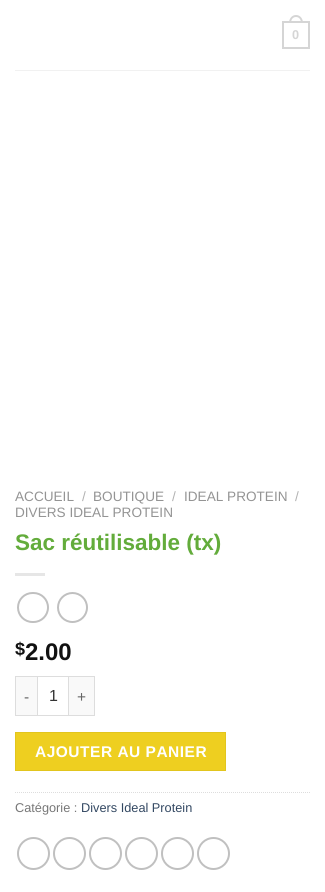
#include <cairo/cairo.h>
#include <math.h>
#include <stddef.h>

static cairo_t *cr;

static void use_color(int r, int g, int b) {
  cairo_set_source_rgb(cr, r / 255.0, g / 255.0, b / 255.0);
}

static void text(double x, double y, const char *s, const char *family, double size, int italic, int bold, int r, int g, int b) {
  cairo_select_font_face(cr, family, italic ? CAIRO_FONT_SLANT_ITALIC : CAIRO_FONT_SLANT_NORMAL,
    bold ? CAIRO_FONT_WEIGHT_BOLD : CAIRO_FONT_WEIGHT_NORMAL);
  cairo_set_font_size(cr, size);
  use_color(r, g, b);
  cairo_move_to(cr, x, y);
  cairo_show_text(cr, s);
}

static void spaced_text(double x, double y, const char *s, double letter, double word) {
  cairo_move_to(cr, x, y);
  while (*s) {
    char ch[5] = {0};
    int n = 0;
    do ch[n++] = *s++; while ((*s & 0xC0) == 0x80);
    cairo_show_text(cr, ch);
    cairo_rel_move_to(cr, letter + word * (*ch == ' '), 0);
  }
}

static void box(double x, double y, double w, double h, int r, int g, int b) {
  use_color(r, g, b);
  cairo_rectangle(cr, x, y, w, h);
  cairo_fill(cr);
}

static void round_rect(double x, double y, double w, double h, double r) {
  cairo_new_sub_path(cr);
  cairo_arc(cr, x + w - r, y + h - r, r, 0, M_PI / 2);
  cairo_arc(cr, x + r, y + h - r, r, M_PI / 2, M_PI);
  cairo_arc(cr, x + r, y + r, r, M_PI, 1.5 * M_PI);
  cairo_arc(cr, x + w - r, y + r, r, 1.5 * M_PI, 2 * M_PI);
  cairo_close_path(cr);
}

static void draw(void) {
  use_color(255, 255, 255);
  cairo_paint(cr);
  cairo_rectangle(cr, 283, 22, 26, 26);
  use_color(213, 213, 213);
  cairo_stroke(cr);
  cairo_set_fill_rule(cr, CAIRO_FILL_RULE_EVEN_ODD);
  cairo_new_path(cr);
  cairo_move_to(cr, 296, 15);
  cairo_curve_to(cr, 300.5, 15, 303, 19, 303, 23);
  cairo_line_to(cr, 289, 23);
  cairo_curve_to(cr, 289, 19, 291.5, 15, 296, 15);
  cairo_close_path(cr);
  cairo_move_to(cr, 296, 17);
  cairo_curve_to(cr, 299.5, 17, 301, 20, 301, 23);
  cairo_line_to(cr, 291, 23);
  cairo_curve_to(cr, 291, 20, 292.5, 17, 296, 17);
  cairo_close_path(cr);
  cairo_fill(cr);
  box(15, 70, 295, 1, 241, 241, 241);
  box(15, 573, 30, 3, 230, 230, 230);
  round_rect(18, 593, 30, 29, 14.5);
  use_color(192, 192, 192);
  cairo_stroke(cr);
  cairo_arc(cr, 72.5, 607.5, 14.5, 0, 2 * M_PI);
  cairo_stroke(cr);
  box(16, 677, 21, 38, 249, 249, 249);
  box(15, 676, 22, 1, 221, 221, 221);
  box(15, 715, 22, 1, 221, 221, 221);
  box(15, 676, 1, 40, 221, 221, 221);
  cairo_rectangle(cr, 37.5, 676.5, 31, 39);
  cairo_set_line_width(cr, 1);
  cairo_stroke(cr);
  box(69, 677, 25, 38, 249, 249, 249);
  box(69, 676, 26, 1, 221, 221, 221);
  box(94, 676, 1, 40, 221, 221, 221);
  box(69, 715, 26, 1, 221, 221, 221);
  use_color(238, 207, 32);
  cairo_rectangle(cr, 15.5, 732.5, 210, 38);
  cairo_fill_preserve(cr);
  use_color(226, 197, 30);
  cairo_stroke(cr);
  cairo_new_path(cr);
  cairo_move_to(cr, 15, 792.5);
  cairo_line_to(cr, 310, 792.5);
  use_color(221, 221, 221);
  cairo_set_dash(cr, (double[]){1, 1}, 2, 0);
  cairo_stroke(cr);
  cairo_arc(cr, 33.5, 853.5, 15.5, 0, 2 * M_PI);
  use_color(192, 192, 192);
  cairo_set_line_width(cr, 2);
  cairo_set_dash(cr, NULL, 0, 0);
  cairo_stroke(cr);
  cairo_arc(cr, 69.5, 853.5, 15.5, 0, 2 * M_PI);
  cairo_stroke(cr);
  cairo_arc(cr, 105.5, 853.5, 15.5, 0, 2 * M_PI);
  cairo_stroke(cr);
  cairo_arc(cr, 141.5, 853.5, 15.5, 0, 2 * M_PI);
  cairo_stroke(cr);
  cairo_arc(cr, 177.5, 853.5, 15.5, 0, 2 * M_PI);
  cairo_stroke(cr);
  cairo_arc(cr, 213.5, 853.5, 15.5, 0, 2 * M_PI);
  cairo_stroke(cr);
  text(292, 39, "0", "Liberation Sans", 12.75, 0, 1, 213, 213, 213);
  text(15, 501, "ACCUEIL", "Liberation Sans", 13.6, 0, 0, 148, 148, 148);
  text(82, 501, "/", "Liberation Sans", 13.6, 0, 0, 178, 178, 178);
  text(93, 501, "BOUTIQUE", "Liberation Sans", 13.6, 0, 0, 148, 148, 148);
  text(172, 501, "/", "Liberation Sans", 13.6, 0, 0, 178, 178, 178);
  text(184, 501, "IDEAL PROTEIN", "Liberation Sans", 13.6, 0, 0, 148, 148, 148);
  text(295, 501, "/", "Liberation Sans", 13.6, 0, 0, 178, 178, 178);
  text(15, 517, "DIVERS IDEAL PROTEIN", "Liberation Sans", 13.6, 0, 0, 148, 148, 148);
  text(15, 550, "Sac réutilisable (tx)", "Liberation Sans", 22.5, 0, 1, 99, 172, 59);
  text(15, 655, "$", "Liberation Sans", 18, 0, 1, 17, 17, 17);
  text(25, 660, "2.00", "Liberation Sans", 24, 0, 1, 17, 17, 17);
  cairo_select_font_face(cr, "Liberation Sans", CAIRO_FONT_SLANT_NORMAL, CAIRO_FONT_WEIGHT_NORMAL);
  cairo_set_font_size(cr, 15.5);
  use_color(102, 102, 102);
  spaced_text(24, 702, "-", 0.5, 0);
  text(49, 701, "1", "Liberation Sans", 16, 0, 0, 51, 51, 51);
  cairo_set_font_size(cr, 15.5);
  use_color(102, 102, 102);
  spaced_text(77, 702, "+", 0.5, 0);
  cairo_select_font_face(cr, "Liberation Sans", CAIRO_FONT_SLANT_NORMAL, CAIRO_FONT_WEIGHT_BOLD);
  use_color(255, 255, 255);
  spaced_text(35, 757, "AJOUTER AU PANIER", 0.5, 0);
  text(15, 812, "Catégorie :", "Liberation Sans", 12.75, 0, 0, 119, 119, 119);
  text(81, 812, "Divers Ideal Protein", "Liberation Sans", 12.75, 0, 0, 51, 72, 98);
}

int main(void) {
  cairo_surface_t *surface = cairo_image_surface_create(CAIRO_FORMAT_RGB24, 325, 892);
  cr = cairo_create(surface);
  cairo_font_options_t *options = cairo_font_options_create();
  cairo_font_options_set_hint_metrics(options, CAIRO_HINT_METRICS_OFF);
  cairo_font_options_set_hint_style(options, CAIRO_HINT_STYLE_NONE);
  cairo_set_font_options(cr, options);
  cairo_set_miter_limit(cr, 4);
  draw();
  cairo_surface_write_to_png(surface, "out.png");
  cairo_font_options_destroy(options);
  cairo_destroy(cr);
  cairo_surface_destroy(surface);
  return 0;
}
